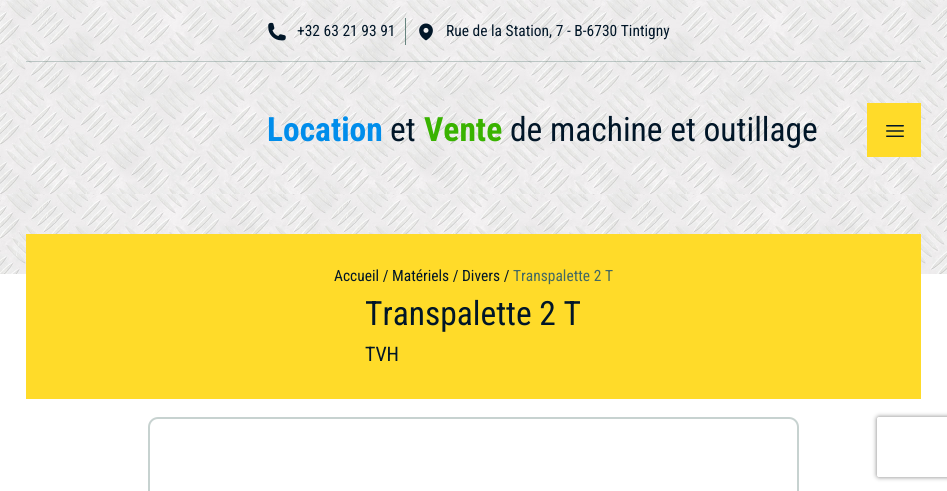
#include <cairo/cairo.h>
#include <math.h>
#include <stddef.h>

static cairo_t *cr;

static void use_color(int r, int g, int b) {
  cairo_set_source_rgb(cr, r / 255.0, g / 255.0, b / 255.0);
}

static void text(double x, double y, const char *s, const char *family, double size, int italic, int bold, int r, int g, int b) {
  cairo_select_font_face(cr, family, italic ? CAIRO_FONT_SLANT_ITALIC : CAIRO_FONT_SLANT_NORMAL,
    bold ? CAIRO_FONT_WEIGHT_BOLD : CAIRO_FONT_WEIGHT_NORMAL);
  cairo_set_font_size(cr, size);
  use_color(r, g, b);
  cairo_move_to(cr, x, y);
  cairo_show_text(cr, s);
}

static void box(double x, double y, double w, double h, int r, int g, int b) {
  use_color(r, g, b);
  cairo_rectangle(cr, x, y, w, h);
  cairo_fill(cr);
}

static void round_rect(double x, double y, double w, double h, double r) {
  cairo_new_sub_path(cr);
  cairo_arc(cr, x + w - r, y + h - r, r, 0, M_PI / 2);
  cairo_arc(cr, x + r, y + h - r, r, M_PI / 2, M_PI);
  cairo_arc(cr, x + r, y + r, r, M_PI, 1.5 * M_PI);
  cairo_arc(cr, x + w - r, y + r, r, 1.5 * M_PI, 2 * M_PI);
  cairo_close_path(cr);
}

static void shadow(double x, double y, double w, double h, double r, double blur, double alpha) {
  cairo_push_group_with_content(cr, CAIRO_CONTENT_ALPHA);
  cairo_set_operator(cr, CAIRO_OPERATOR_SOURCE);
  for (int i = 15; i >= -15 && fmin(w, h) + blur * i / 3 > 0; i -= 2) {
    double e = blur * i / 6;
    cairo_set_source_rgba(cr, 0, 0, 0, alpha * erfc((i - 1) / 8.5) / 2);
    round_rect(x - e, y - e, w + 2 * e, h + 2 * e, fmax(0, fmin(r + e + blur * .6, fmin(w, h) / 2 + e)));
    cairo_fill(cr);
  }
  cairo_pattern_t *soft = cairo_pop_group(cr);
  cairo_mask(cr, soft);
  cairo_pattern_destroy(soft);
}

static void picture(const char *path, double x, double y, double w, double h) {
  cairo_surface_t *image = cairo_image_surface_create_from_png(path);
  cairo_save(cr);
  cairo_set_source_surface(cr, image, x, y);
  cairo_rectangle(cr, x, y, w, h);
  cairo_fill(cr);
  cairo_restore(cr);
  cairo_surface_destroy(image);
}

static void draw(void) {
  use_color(255, 255, 255);
  cairo_paint(cr);
  picture("img_01.png", 0, 0, 947, 194);
  cairo_set_source_rgba(cr, 0.271, 0.416, 0.388, 0.3);
  cairo_rectangle(cr, 26, 61, 895, 1);
  cairo_fill(cr);
  picture("img_02.png", 268, 22, 18, 19);
  cairo_set_source_rgba(cr, 0.271, 0.416, 0.388, 0.8);
  cairo_rectangle(cr, 405, 18, 1, 27);
  cairo_fill(cr);
  picture("img_03.png", 419, 23, 14, 18);
  box(867, 103, 54, 54, 255, 219, 41);
  picture("img_04.png", 886, 125, 18, 12);
  picture("img_05.png", 0, 194, 947, 80);
  box(26, 234, 895, 165, 255, 219, 41);
  round_rect(149, 418, 649, 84, 9);
  use_color(199, 210, 208);
  cairo_stroke(cr);
  cairo_save(cr);
  cairo_set_fill_rule(cr, CAIRO_FILL_RULE_EVEN_ODD);
  cairo_new_path(cr);
  cairo_move_to(cr, 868, 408);
  cairo_line_to(cr, 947, 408);
  cairo_line_to(cr, 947, 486);
  cairo_line_to(cr, 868, 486);
  cairo_close_path(cr);
  cairo_move_to(cr, 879, 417);
  cairo_line_to(cr, 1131, 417);
  cairo_curve_to(cr, 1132, 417, 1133, 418, 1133, 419);
  cairo_line_to(cr, 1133, 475);
  cairo_curve_to(cr, 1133, 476, 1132, 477, 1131, 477);
  cairo_line_to(cr, 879, 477);
  cairo_curve_to(cr, 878, 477, 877, 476, 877, 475);
  cairo_line_to(cr, 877, 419);
  cairo_curve_to(cr, 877, 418, 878, 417, 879, 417);
  cairo_close_path(cr);
  cairo_clip(cr);
  use_color(128, 128, 128);
  shadow(877, 417, 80, 60, 2, 2.5, 1);
  cairo_restore(cr);
  text(297, 36, "+32 63 21 93 91", "Roboto Condensed", 15.5, 0, 0, 1, 22, 40);
  text(446, 36, "Rue de la Station, 7 - B-6730 Tintigny", "Roboto Condensed", 15.5, 0, 0, 1, 22, 40);
  text(267, 141, "Location", "Roboto Condensed", 33.5, 0, 1, 0, 141, 235);
  text(390, 141, "et", "Roboto Condensed", 33.5, 0, 0, 1, 22, 40);
  text(424, 141, "Vente", "Roboto Condensed", 33.5, 0, 1, 57, 179, 0);
  text(510, 141, "de machine et outillage", "Roboto Condensed", 33.5, 0, 0, 1, 22, 40);
  text(334, 281, "Accueil / Matériels / Divers /", "Roboto Condensed", 15.5, 0, 0, 1, 22, 40);
  text(513, 281, "Transpalette 2 T", "Roboto Condensed", 15.5, 0, 0, 68, 105, 98);
  text(365, 325, "Transpalette 2 T", "Roboto Condensed", 33.5, 0, 0, 1, 22, 40);
  text(365, 361, "TVH", "Roboto Condensed", 20, 0, 0, 1, 22, 40);
}

int main(void) {
  cairo_surface_t *surface = cairo_image_surface_create(CAIRO_FORMAT_RGB24, 947, 491);
  cr = cairo_create(surface);
  cairo_font_options_t *options = cairo_font_options_create();
  cairo_font_options_set_hint_metrics(options, CAIRO_HINT_METRICS_OFF);
  cairo_font_options_set_hint_style(options, CAIRO_HINT_STYLE_NONE);
  cairo_set_font_options(cr, options);
  cairo_set_miter_limit(cr, 4);
  draw();
  cairo_surface_write_to_png(surface, "out.png");
  cairo_font_options_destroy(options);
  cairo_destroy(cr);
  cairo_surface_destroy(surface);
  return 0;
}
